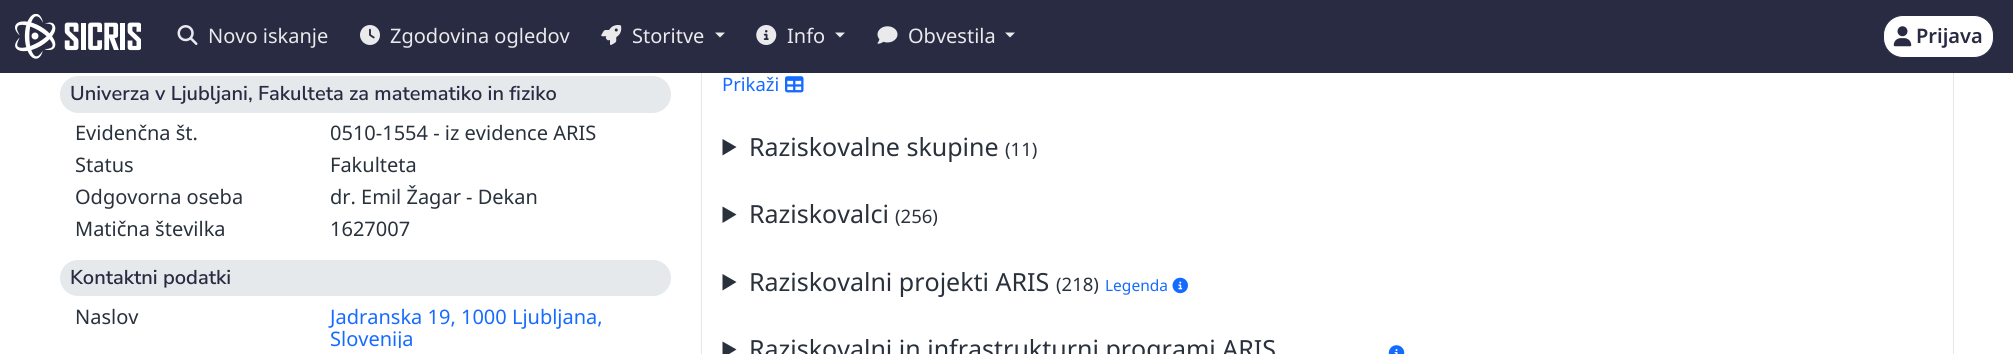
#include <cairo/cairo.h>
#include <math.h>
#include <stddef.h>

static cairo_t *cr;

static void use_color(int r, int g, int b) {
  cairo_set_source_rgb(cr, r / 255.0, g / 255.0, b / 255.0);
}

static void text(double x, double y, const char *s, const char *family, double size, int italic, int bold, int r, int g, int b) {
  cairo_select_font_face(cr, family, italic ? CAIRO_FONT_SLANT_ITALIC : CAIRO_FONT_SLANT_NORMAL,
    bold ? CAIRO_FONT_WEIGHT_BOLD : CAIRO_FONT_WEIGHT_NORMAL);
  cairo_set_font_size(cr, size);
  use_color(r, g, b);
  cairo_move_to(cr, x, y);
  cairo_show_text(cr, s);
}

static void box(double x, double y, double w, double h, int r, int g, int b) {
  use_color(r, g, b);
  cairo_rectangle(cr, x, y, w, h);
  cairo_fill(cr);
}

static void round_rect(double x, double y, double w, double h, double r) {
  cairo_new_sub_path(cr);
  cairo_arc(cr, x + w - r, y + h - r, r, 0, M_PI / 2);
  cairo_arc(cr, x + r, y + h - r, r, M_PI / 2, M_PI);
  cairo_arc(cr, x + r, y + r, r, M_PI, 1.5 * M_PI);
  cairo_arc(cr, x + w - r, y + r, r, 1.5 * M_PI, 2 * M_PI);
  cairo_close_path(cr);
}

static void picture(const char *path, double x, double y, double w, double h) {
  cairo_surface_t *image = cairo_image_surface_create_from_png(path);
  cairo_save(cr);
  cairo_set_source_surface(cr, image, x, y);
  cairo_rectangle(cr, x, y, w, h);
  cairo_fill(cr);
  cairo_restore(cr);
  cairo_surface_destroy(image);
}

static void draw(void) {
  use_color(255, 255, 255);
  cairo_paint(cr);
  cairo_rectangle(cr, 701.5, -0.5, 1252, 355);
  use_color(229, 230, 233);
  cairo_set_line_width(cr, 1);
  cairo_stroke(cr);
  box(0, 0, 2013, 73, 40, 43, 66);
  picture("img_01.png", 15, 14, 126, 45);
  picture("img_02.png", 177, 25, 21, 20);
  picture("img_03.png", 360, 25, 20, 20);
  picture("img_04.png", 601, 25, 21, 20);
  use_color(234, 234, 236);
  cairo_new_path(cr);
  cairo_move_to(cr, 715, 32.5);
  cairo_line_to(cr, 725, 32.5);
  cairo_line_to(cr, 720, 37.5);
  cairo_close_path(cr);
  cairo_fill(cr);
  picture("img_05.png", 756, 25, 21, 20);
  cairo_new_path(cr);
  cairo_move_to(cr, 835, 32.5);
  cairo_line_to(cr, 845, 32.5);
  cairo_line_to(cr, 840, 37.5);
  cairo_close_path(cr);
  cairo_fill(cr);
  picture("img_06.png", 877, 26, 21, 18);
  cairo_new_path(cr);
  cairo_move_to(cr, 1005, 32.5);
  cairo_line_to(cr, 1015, 32.5);
  cairo_line_to(cr, 1010, 37.5);
  cairo_close_path(cr);
  cairo_fill(cr);
  use_color(255, 255, 255);
  round_rect(1883.5, 15.5, 110, 42, 19.5);
  cairo_fill_preserve(cr);
  use_color(40, 43, 66);
  cairo_stroke(cr);
  picture("img_07.png", 1893, 26, 19, 21);
  use_color(230, 233, 236);
  round_rect(60, 76, 611, 37, 18.5);
  cairo_fill(cr);
  round_rect(60, 260, 611, 36, 18);
  cairo_fill(cr);
  picture("img_08.png", 785, 76, 19, 17);
  use_color(41, 49, 61);
  cairo_new_path(cr);
  cairo_move_to(cr, 722.5, 139);
  cairo_line_to(cr, 736.5, 147);
  cairo_line_to(cr, 722.5, 155.5);
  cairo_close_path(cr);
  cairo_fill(cr);
  cairo_new_path(cr);
  cairo_move_to(cr, 722.5, 206.5);
  cairo_line_to(cr, 736.5, 214.5);
  cairo_line_to(cr, 722.5, 223);
  cairo_close_path(cr);
  cairo_fill(cr);
  cairo_new_path(cr);
  cairo_move_to(cr, 722.5, 274);
  cairo_line_to(cr, 736.5, 282);
  cairo_line_to(cr, 722.5, 290.5);
  cairo_close_path(cr);
  cairo_fill(cr);
  picture("img_09.png", 1172, 277, 16, 17);
  cairo_new_path(cr);
  cairo_move_to(cr, 722.5, 341.5);
  cairo_line_to(cr, 736.5, 349.5);
  cairo_line_to(cr, 722.5, 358);
  cairo_close_path(cr);
  cairo_fill(cr);
  picture("img_10.png", 1388, 345, 17, 9);
  text(208, 43, "Novo iskanje", "Noto Sans", 20, 0, 0, 234, 234, 236);
  text(390, 43, "Zgodovina ogledov", "Noto Sans", 20, 0, 0, 234, 234, 236);
  text(632, 43, "Storitve", "Noto Sans", 20, 0, 0, 234, 234, 236);
  text(787, 43, "Info", "Noto Sans", 20, 0, 0, 234, 234, 236);
  text(908, 43, "Obvestila", "Noto Sans", 20, 0, 0, 234, 234, 236);
  text(1916, 43, "Prijava", "Noto Sans SemiBold", 20, 0, 0, 40, 43, 66);
  text(70, 100, "Univerza v Ljubljani, Fakulteta za matematiko in fiziko", "Nunito Sans SemiBold", 20, 0, 0, 40, 43, 66);
  text(75, 140, "Evidenčna št.", "Noto Sans", 20, 0, 0, 41, 49, 61);
  text(330, 140, "0510-1554 - iz evidence ARIS", "Noto Sans", 20, 0, 0, 41, 49, 61);
  text(75, 172, "Status", "Noto Sans", 20, 0, 0, 41, 49, 61);
  text(330, 172, "Fakulteta", "Noto Sans", 20, 0, 0, 41, 49, 61);
  text(75, 204, "Odgovorna oseba", "Noto Sans", 20, 0, 0, 41, 49, 61);
  text(330, 204, "dr. Emil Žagar - Dekan", "Noto Sans", 20, 0, 0, 41, 49, 61);
  text(75, 236, "Matična številka", "Noto Sans", 20, 0, 0, 41, 49, 61);
  text(330, 236, "1627007", "Noto Sans", 20, 0, 0, 41, 49, 61);
  text(70, 284, "Kontaktni podatki", "Nunito Sans SemiBold", 20, 0, 0, 40, 43, 66);
  text(75, 324, "Naslov", "Noto Sans", 20, 0, 0, 41, 49, 61);
  text(330, 324, "Jadranska 19, 1000 Ljubljana,", "Noto Sans", 20, 0, 0, 21, 107, 255);
  cairo_save(cr);
  cairo_rectangle(cr, 60, 76, 611, 272);
  cairo_clip(cr);
  text(330, 346, "Slovenija", "Noto Sans", 20, 0, 0, 21, 107, 255);
  cairo_restore(cr);
  text(722, 91, "Prikaži", "Noto Sans", 18.5, 0, 0, 21, 107, 255);
  text(749, 156, "Raziskovalne skupine", "Noto Sans", 25, 0, 0, 41, 49, 61);
  text(1005, 156, "(11)", "Noto Sans", 18.5, 0, 0, 41, 49, 61);
  text(749, 223, "Raziskovalci", "Noto Sans", 25, 0, 0, 41, 49, 61);
  text(895, 223, "(256)", "Noto Sans", 18.5, 0, 0, 41, 49, 61);
  text(749, 291, "Raziskovalni projekti ARIS", "Noto Sans", 25, 0, 0, 41, 49, 61);
  text(1056, 291, "(218)", "Noto Sans", 18.5, 0, 0, 41, 49, 61);
  text(1105, 291, "Legenda", "Noto Sans", 15.5, 0, 0, 21, 107, 255);
  text(749, 358, "Raziskovalni in infrastrukturni programi ARIS", "Noto Sans", 25, 0, 0, 41, 49, 61);
}

int main(void) {
  cairo_surface_t *surface = cairo_image_surface_create(CAIRO_FORMAT_RGB24, 2013, 354);
  cr = cairo_create(surface);
  cairo_font_options_t *options = cairo_font_options_create();
  cairo_font_options_set_hint_metrics(options, CAIRO_HINT_METRICS_OFF);
  cairo_font_options_set_hint_style(options, CAIRO_HINT_STYLE_NONE);
  cairo_set_font_options(cr, options);
  cairo_set_miter_limit(cr, 4);
  draw();
  cairo_surface_write_to_png(surface, "out.png");
  cairo_font_options_destroy(options);
  cairo_destroy(cr);
  cairo_surface_destroy(surface);
  return 0;
}
